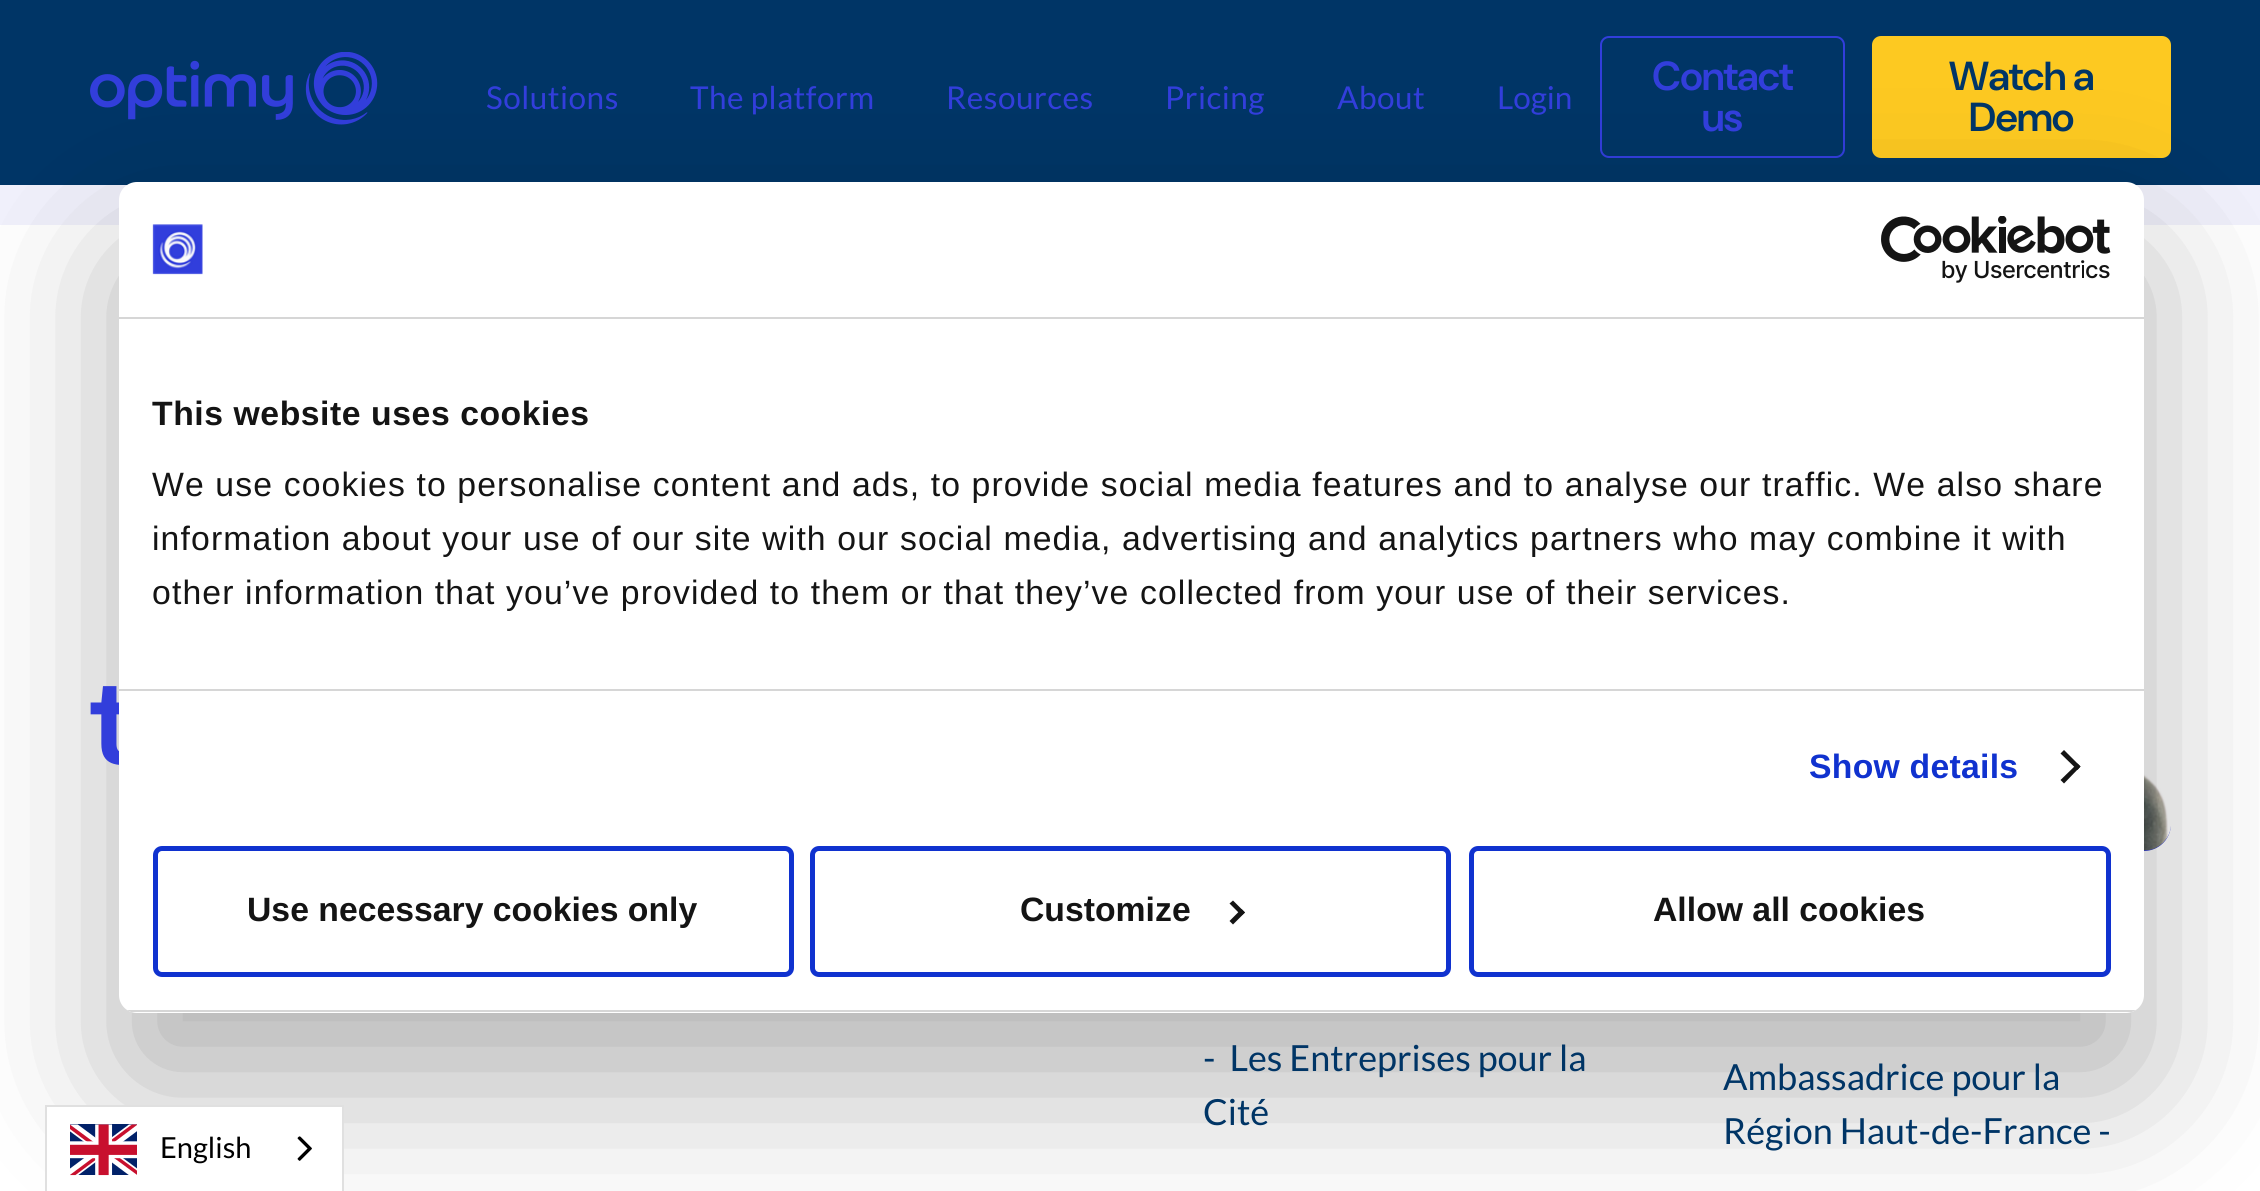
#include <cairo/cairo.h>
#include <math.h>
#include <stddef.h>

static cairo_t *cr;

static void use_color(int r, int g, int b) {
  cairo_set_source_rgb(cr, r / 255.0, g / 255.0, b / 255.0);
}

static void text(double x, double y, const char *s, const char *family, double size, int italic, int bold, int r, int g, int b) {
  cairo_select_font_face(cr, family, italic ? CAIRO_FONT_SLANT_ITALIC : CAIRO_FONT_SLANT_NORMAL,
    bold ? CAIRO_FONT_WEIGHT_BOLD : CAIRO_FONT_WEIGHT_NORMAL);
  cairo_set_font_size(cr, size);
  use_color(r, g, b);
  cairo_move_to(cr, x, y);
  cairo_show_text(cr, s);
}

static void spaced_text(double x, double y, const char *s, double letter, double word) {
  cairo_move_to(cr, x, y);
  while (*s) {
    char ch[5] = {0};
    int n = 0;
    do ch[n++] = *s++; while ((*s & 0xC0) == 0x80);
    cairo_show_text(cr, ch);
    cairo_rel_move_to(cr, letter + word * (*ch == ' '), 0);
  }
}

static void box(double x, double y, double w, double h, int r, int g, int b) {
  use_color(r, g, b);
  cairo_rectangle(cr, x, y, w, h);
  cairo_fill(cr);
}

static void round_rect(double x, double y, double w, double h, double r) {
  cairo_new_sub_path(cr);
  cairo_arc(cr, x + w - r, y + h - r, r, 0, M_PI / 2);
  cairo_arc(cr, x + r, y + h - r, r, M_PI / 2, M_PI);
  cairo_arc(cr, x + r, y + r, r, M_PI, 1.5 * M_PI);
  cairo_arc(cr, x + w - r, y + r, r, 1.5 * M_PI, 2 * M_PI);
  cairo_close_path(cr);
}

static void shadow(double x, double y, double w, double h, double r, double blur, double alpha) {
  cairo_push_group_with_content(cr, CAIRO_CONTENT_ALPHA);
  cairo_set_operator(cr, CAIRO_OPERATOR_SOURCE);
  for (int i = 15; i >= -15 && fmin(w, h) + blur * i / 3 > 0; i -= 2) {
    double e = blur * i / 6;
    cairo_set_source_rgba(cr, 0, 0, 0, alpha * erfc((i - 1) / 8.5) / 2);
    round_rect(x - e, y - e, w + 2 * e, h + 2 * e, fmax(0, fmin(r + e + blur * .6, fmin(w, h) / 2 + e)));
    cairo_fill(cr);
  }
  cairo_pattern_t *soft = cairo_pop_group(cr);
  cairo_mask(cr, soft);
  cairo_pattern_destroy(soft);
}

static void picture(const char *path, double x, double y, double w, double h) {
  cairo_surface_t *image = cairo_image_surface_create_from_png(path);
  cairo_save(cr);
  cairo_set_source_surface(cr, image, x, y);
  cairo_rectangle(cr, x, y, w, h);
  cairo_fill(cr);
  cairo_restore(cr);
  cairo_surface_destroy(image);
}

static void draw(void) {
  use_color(255, 255, 255);
  cairo_paint(cr);
  box(0, 0, 2260, 185, 0, 53, 102);
  picture("img_01.png", 90, 52, 288, 73);
  round_rect(1601, 37, 243, 120, 8);
  use_color(50, 62, 219);
  cairo_stroke(cr);
  use_color(253, 201, 33);
  round_rect(1873, 37, 297, 120, 8);
  cairo_fill_preserve(cr);
  cairo_stroke(cr);
  box(0, 185, 2260, 40, 241, 241, 252);
  use_color(50, 62, 219);
  round_rect(1724, 513, 447, 338, 27);
  cairo_fill(cr);
  picture("img_02.png", 2144, 467, 27, 384);
  use_color(0, 0, 0);
  shadow(119, 254, 2025, 831, 18, 76.5, 0.3);
  use_color(255, 255, 255);
  cairo_rectangle(cr, 46, 1106, 297, 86);
  cairo_fill_preserve(cr);
  use_color(224, 224, 224);
  cairo_stroke(cr);
  picture("img_05.png", 70, 1124, 67, 52);
  picture("img_06.png", 297, 1136, 15, 25);
  cairo_select_font_face(cr, "Lato", CAIRO_FONT_SLANT_NORMAL, CAIRO_FONT_WEIGHT_NORMAL);
  cairo_set_font_size(cr, 31.5);
  use_color(50, 62, 219);
  spaced_text(486, 109, "Solutions", 0.5, 0);
  spaced_text(690, 109, "The platform", 0.5, 0);
  spaced_text(946, 109, "Resources", 0.5, 0);
  spaced_text(1165, 109, "Pricing", 0.5, 0);
  spaced_text(1337, 109, "About", 0.5, 0);
  text(1497, 109, "Login", "Lato", 31.5, 0, 0, 50, 62, 219);
  cairo_select_font_face(cr, "DM Sans SemiBold", CAIRO_FONT_SLANT_NORMAL, CAIRO_FONT_WEIGHT_NORMAL);
  cairo_set_font_size(cr, 40.5);
  spaced_text(1652, 90, "Contact", -0.75, 0);
  spaced_text(1702, 131, "us", -0.75, 0);
  use_color(0, 53, 102);
  spaced_text(1949, 90, "Watch a", -0.75, 0);
  spaced_text(1969, 131, "Demo", -0.75, 0);
  cairo_set_font_size(cr, 126);
  use_color(50, 62, 219);
  spaced_text(90, 765, "t", -4, 0);
  text(1203, 1071, "-  Les Entreprises pour la", "Lato", 36, 0, 0, 0, 53, 102);
  text(1203, 1125, "Cité", "Lato", 36, 0, 0, 0, 53, 102);
  text(1723, 1090, "Ambassadrice pour la", "Lato", 36, 0, 0, 0, 53, 102);
  text(1723, 1144, "Région Haut-de-France -", "Lato", 36, 0, 0, 0, 53, 102);
  use_color(255, 255, 255);
  round_rect(119, 182, 2025, 831, 18);
  cairo_fill(cr);
  box(119, 317, 2025, 2, 214, 214, 214);
  picture("img_03.png", 152, 224, 51, 51);
  picture("img_04.png", 1881, 216, 230, 67);
  box(119, 689, 2025, 2, 214, 214, 214);
  cairo_select_font_face(cr, "Liberation Sans", CAIRO_FONT_SLANT_NORMAL, CAIRO_FONT_WEIGHT_BOLD);
  cairo_set_font_size(cr, 33.75);
  use_color(20, 20, 20);
  spaced_text(152, 425, "This website uses cookies", 0.55, 0);
  cairo_select_font_face(cr, "Liberation Sans", CAIRO_FONT_SLANT_NORMAL, CAIRO_FONT_WEIGHT_NORMAL);
  spaced_text(152, 496, "We use cookies to personalise content and ads, to provide social media features and to analyse our traffic. We also share", 1.12, 0);
  spaced_text(152, 550, "information about your use of our site with our social media, advertising and analytics partners who may combine it with", 1.12, 0);
  spaced_text(152, 604, "other information that you’ve provided to them or that they’ve collected from your use of their services.", 1.12, 0);
  cairo_select_font_face(cr, "Liberation Sans", CAIRO_FONT_SLANT_NORMAL, CAIRO_FONT_WEIGHT_BOLD);
  use_color(16, 50, 207);
  spaced_text(1809, 778, "Show details", 0.25, 0);
  use_color(20, 20, 20);
  cairo_new_path(cr);
  cairo_move_to(cr, 2064, 750);
  cairo_line_to(cr, 2080.5, 766.5);
  cairo_line_to(cr, 2077.5, 770);
  cairo_line_to(cr, 2060.5, 753.5);
  cairo_close_path(cr);
  cairo_fill(cr);
  cairo_new_path(cr);
  cairo_move_to(cr, 2077.5, 763.5);
  cairo_line_to(cr, 2080.5, 766.5);
  cairo_line_to(cr, 2064, 783.5);
  cairo_line_to(cr, 2060.5, 780);
  cairo_close_path(cr);
  cairo_fill(cr);
  cairo_save(cr);
  round_rect(119, 182, 2025, 831, 18);
  cairo_clip(cr);
  box(119, 1010, 2025, 2, 214, 214, 214);
  cairo_restore(cr);
  round_rect(155.5, 848.5, 636, 126, 6.5);
  use_color(16, 50, 207);
  cairo_set_line_width(cr, 5);
  cairo_stroke(cr);
  text(247, 921, "Use necessary cookies only", "Liberation Sans", 33.75, 0, 1, 20, 20, 20);
  round_rect(812.5, 848.5, 636, 126, 6.5);
  use_color(16, 50, 207);
  cairo_stroke(cr);
  text(1020, 921, "Customize", "Liberation Sans", 33.75, 0, 1, 20, 20, 20);
  cairo_new_path(cr);
  cairo_move_to(cr, 1233, 900.5);
  cairo_line_to(cr, 1245, 912.5);
  cairo_line_to(cr, 1241.5, 915.5);
  cairo_line_to(cr, 1229.5, 903.5);
  cairo_close_path(cr);
  cairo_fill(cr);
  cairo_new_path(cr);
  cairo_move_to(cr, 1241.5, 909);
  cairo_line_to(cr, 1245, 912.5);
  cairo_line_to(cr, 1233, 924.5);
  cairo_line_to(cr, 1229.5, 921);
  cairo_close_path(cr);
  cairo_fill(cr);
  round_rect(1471.5, 848.5, 637, 126, 6.5);
  use_color(16, 50, 207);
  cairo_stroke(cr);
  text(1653, 921, "Allow all cookies", "Liberation Sans", 33.75, 0, 1, 20, 20, 20);
  text(160, 1158, "English", "Lato", 29, 0, 0, 0, 0, 0);
}

int main(void) {
  cairo_surface_t *surface = cairo_image_surface_create(CAIRO_FORMAT_RGB24, 2260, 1191);
  cr = cairo_create(surface);
  cairo_font_options_t *options = cairo_font_options_create();
  cairo_font_options_set_hint_metrics(options, CAIRO_HINT_METRICS_OFF);
  cairo_font_options_set_hint_style(options, CAIRO_HINT_STYLE_NONE);
  cairo_set_font_options(cr, options);
  cairo_set_miter_limit(cr, 4);
  draw();
  cairo_surface_write_to_png(surface, "out.png");
  cairo_font_options_destroy(options);
  cairo_destroy(cr);
  cairo_surface_destroy(surface);
  return 0;
}
